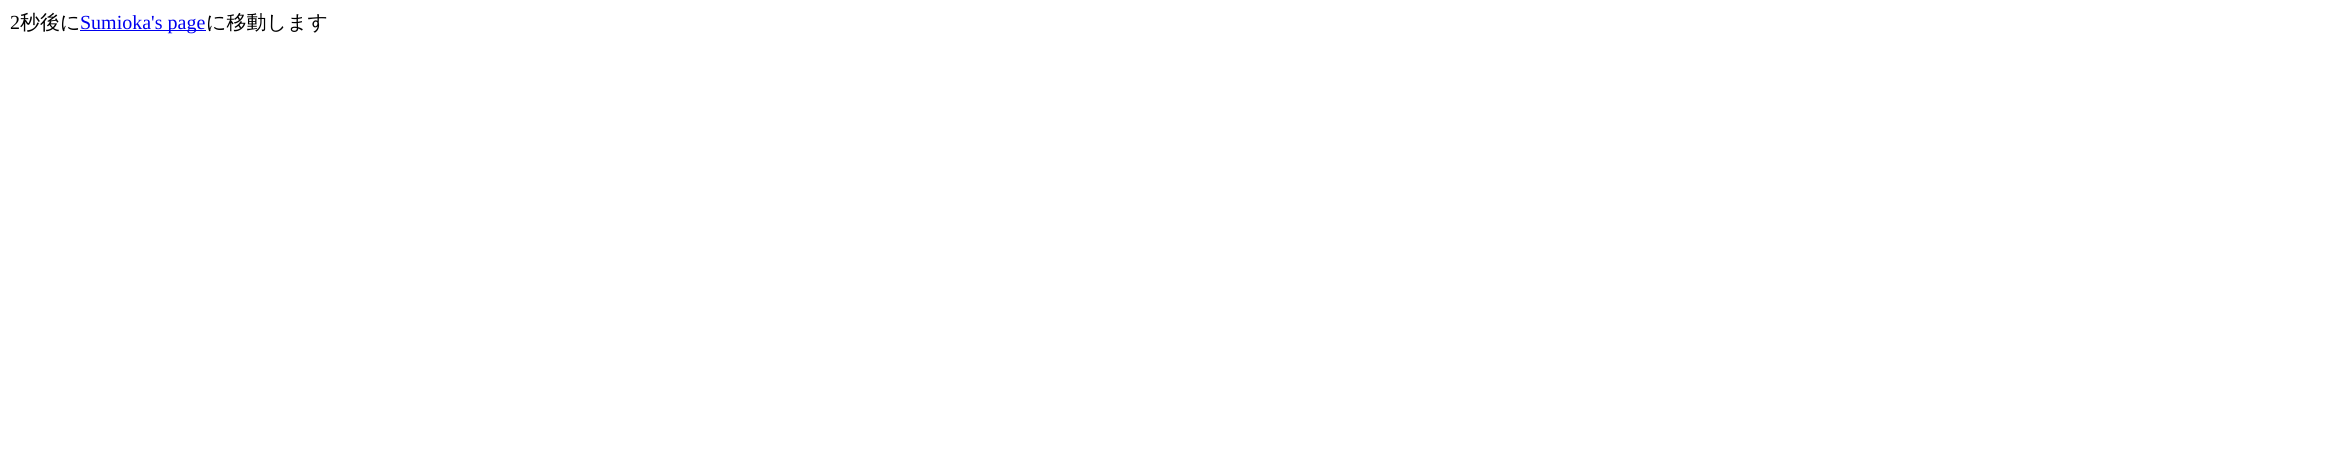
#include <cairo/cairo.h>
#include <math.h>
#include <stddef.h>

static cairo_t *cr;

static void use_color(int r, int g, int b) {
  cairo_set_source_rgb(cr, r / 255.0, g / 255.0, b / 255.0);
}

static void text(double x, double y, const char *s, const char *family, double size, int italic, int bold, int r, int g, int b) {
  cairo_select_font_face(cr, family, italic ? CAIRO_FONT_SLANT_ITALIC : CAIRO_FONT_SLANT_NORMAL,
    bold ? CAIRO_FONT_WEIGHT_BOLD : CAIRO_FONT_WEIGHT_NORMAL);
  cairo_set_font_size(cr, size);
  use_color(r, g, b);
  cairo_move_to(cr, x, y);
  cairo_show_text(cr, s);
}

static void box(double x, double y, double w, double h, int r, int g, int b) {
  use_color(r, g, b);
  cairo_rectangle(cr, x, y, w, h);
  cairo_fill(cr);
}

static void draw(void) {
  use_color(255, 255, 255);
  cairo_paint(cr);
  box(80, 30, 126, 1, 0, 0, 238);
  text(10, 29, "2", "Liberation Serif", 20, 0, 0, 0, 0, 0);
  text(20, 29, "秒後に", "WenQuanYi Zen Hei Medium", 20, 0, 0, 0, 0, 0);
  text(80, 29, "Sumioka's page", "Liberation Serif", 20, 0, 0, 0, 0, 238);
  text(206, 29, "に移動します", "WenQuanYi Zen Hei Medium", 20, 0, 0, 0, 0, 0);
}

int main(void) {
  cairo_surface_t *surface = cairo_image_surface_create(CAIRO_FORMAT_RGB24, 2330, 470);
  cr = cairo_create(surface);
  cairo_font_options_t *options = cairo_font_options_create();
  cairo_font_options_set_hint_metrics(options, CAIRO_HINT_METRICS_OFF);
  cairo_font_options_set_hint_style(options, CAIRO_HINT_STYLE_NONE);
  cairo_set_font_options(cr, options);
  cairo_set_miter_limit(cr, 4);
  draw();
  cairo_surface_write_to_png(surface, "out.png");
  cairo_font_options_destroy(options);
  cairo_destroy(cr);
  cairo_surface_destroy(surface);
  return 0;
}
